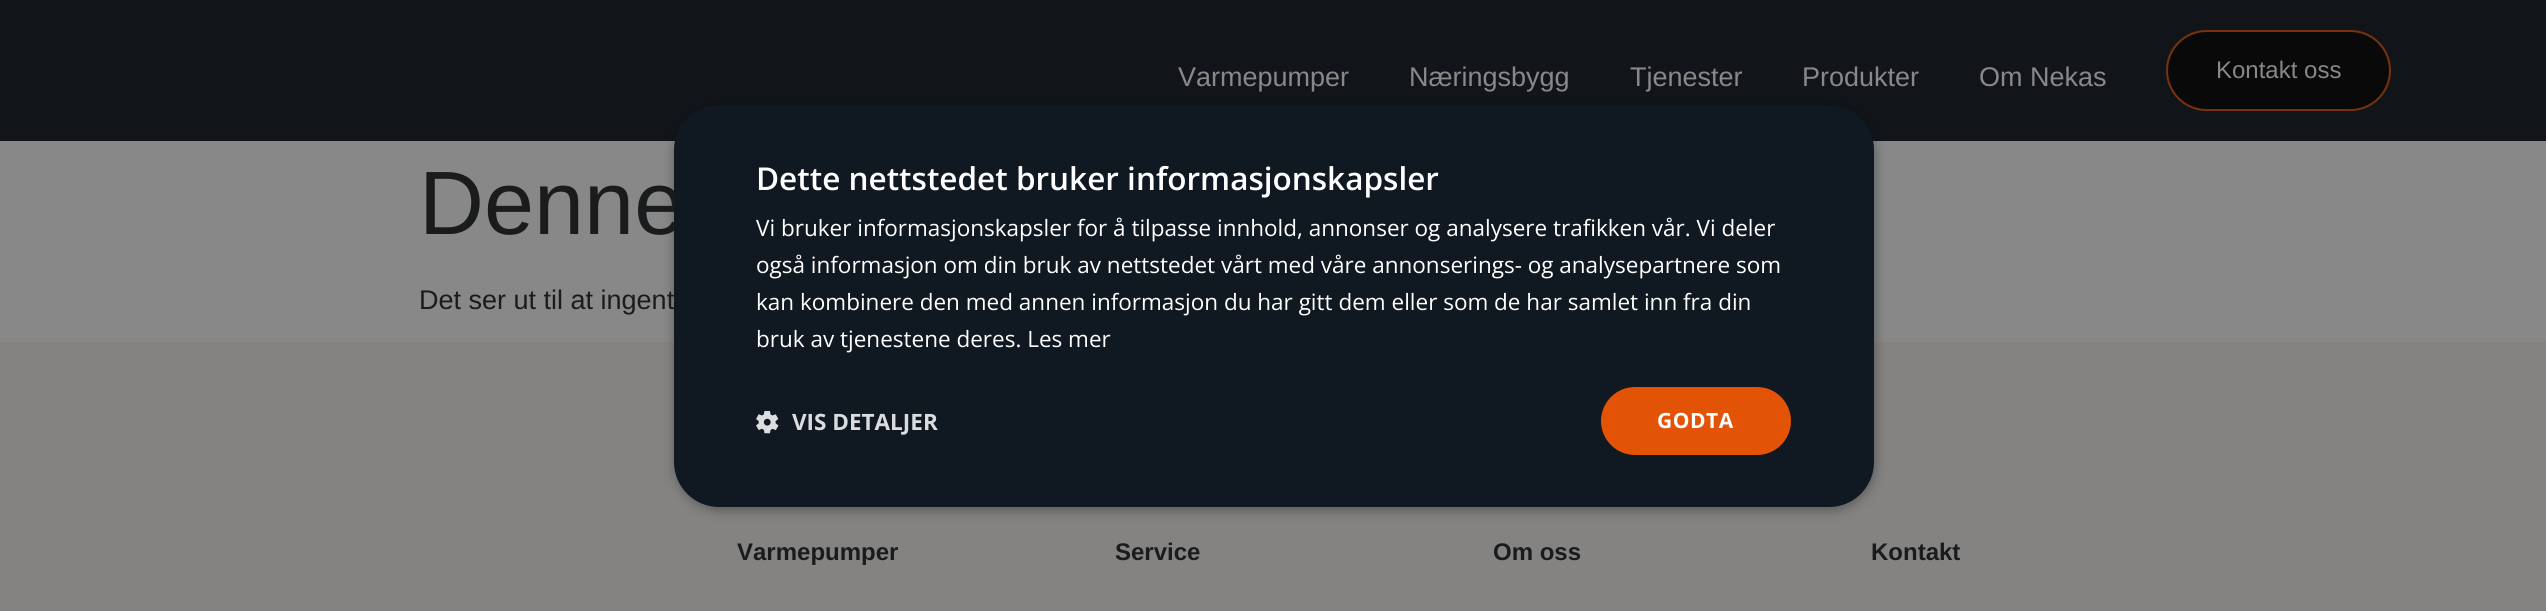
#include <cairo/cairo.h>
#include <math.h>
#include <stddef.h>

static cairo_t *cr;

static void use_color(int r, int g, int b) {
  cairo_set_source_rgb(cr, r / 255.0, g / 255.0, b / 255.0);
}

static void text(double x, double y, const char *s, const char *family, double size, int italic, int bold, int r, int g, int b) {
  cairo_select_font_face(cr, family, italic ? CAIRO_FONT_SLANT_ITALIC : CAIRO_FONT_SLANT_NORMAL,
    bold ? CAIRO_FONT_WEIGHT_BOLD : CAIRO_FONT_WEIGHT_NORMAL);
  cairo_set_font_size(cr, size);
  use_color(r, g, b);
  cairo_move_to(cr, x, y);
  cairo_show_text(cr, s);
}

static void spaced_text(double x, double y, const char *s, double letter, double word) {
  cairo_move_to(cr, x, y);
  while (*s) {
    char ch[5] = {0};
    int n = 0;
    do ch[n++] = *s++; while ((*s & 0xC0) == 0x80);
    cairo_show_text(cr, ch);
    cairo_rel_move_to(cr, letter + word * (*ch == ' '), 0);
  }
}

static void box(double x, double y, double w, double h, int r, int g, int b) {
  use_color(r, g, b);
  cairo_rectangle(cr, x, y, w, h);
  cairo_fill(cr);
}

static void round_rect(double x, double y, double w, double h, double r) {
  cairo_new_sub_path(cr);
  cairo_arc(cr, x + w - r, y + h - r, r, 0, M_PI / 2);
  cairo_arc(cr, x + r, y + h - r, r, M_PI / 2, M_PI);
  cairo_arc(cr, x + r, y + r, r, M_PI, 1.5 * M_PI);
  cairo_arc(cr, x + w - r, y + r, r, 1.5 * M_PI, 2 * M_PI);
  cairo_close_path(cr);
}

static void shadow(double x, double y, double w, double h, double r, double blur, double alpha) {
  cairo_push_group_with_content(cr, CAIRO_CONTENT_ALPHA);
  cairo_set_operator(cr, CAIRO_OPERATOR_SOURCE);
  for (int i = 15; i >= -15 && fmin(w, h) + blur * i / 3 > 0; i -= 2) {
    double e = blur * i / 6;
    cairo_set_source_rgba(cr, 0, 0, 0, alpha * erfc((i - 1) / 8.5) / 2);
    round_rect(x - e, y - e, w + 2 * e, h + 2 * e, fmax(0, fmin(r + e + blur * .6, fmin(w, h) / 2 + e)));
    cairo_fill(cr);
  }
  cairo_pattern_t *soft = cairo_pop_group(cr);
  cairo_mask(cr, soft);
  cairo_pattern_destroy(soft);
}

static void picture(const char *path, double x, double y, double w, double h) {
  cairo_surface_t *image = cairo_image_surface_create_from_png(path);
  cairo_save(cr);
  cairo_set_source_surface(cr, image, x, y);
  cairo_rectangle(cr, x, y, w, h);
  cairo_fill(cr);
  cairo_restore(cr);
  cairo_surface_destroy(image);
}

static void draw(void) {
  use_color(136, 136, 136);
  cairo_paint(cr);
  box(0, 0, 2546, 141, 17, 21, 26);
  use_color(9, 9, 9);
  round_rect(2167, 31, 223, 79, 39.5);
  cairo_fill_preserve(cr);
  use_color(122, 50, 11);
  cairo_stroke(cr);
  box(0, 342, 2546, 269, 132, 131, 130);
  use_color(0, 0, 0);
  shadow(675, 108, 1200, 402, 45, 6, 0.35);
  text(1178, 86, "Varmepumper", "Liberation Sans", 27, 0, 0, 136, 136, 136);
  text(1409, 86, "Næringsbygg", "Liberation Sans", 27, 0, 0, 136, 136, 136);
  text(1630, 86, "Tjenester", "Liberation Sans", 27, 0, 0, 136, 136, 136);
  text(1802, 86, "Produkter", "Liberation Sans", 27, 0, 0, 136, 136, 136);
  text(1979, 86, "Om Nekas", "Liberation Sans", 27, 0, 0, 136, 136, 136);
  text(2216, 78, "Kontakt oss", "Liberation Sans", 24, 0, 0, 136, 136, 136);
  text(419, 234, "Denne", "Liberation Sans", 90, 0, 0, 25, 27, 29);
  text(419, 309, "Det ser ut til at ingent", "Liberation Sans", 27, 0, 0, 25, 27, 29);
  text(737, 560, "Varmepumper", "Liberation Sans", 24, 0, 1, 25, 27, 29);
  text(1115, 560, "Service", "Liberation Sans", 24, 0, 1, 25, 27, 29);
  text(1493, 560, "Om oss", "Liberation Sans", 24, 0, 1, 25, 27, 29);
  text(1871, 560, "Kontakt", "Liberation Sans", 24, 0, 1, 25, 27, 29);
  use_color(16, 24, 34);
  round_rect(674, 105, 1200, 402, 45);
  cairo_fill(cr);
  text(756, 190, "Dette nettstedet bruker informasjonskapsler", "Open Sans SemiBold", 31.5, 0, 0, 255, 255, 255);
  text(756, 236, "Vi bruker informasjonskapsler for å tilpasse innhold, annonser og analysere trafikken vår. Vi deler", "Open Sans", 22.5, 0, 0, 255, 255, 255);
  text(756, 273, "også informasjon om din bruk av nettstedet vårt med våre annonserings- og analysepartnere som", "Open Sans", 22.5, 0, 0, 255, 255, 255);
  text(756, 310, "kan kombinere den med annen informasjon du har gitt dem eller som de har samlet inn fra din", "Open Sans", 22.5, 0, 0, 255, 255, 255);
  text(756, 347, "bruk av tjenestene deres. Les mer", "Open Sans", 22.5, 0, 0, 255, 255, 255);
  picture("img_01.png", 756, 411, 23, 23);
  text(792, 430, "VIS DETALJER", "Open Sans", 22.5, 0, 1, 219, 220, 222);
  use_color(227, 83, 6);
  round_rect(1601, 387, 190, 68, 34);
  cairo_fill(cr);
  cairo_set_font_size(cr, 21);
  use_color(255, 255, 255);
  spaced_text(1657, 428, "GODTA", 0.5, 0);
}

int main(void) {
  cairo_surface_t *surface = cairo_image_surface_create(CAIRO_FORMAT_RGB24, 2546, 611);
  cr = cairo_create(surface);
  cairo_font_options_t *options = cairo_font_options_create();
  cairo_font_options_set_hint_metrics(options, CAIRO_HINT_METRICS_OFF);
  cairo_font_options_set_hint_style(options, CAIRO_HINT_STYLE_NONE);
  cairo_set_font_options(cr, options);
  cairo_set_miter_limit(cr, 4);
  draw();
  cairo_surface_write_to_png(surface, "out.png");
  cairo_font_options_destroy(options);
  cairo_destroy(cr);
  cairo_surface_destroy(surface);
  return 0;
}
